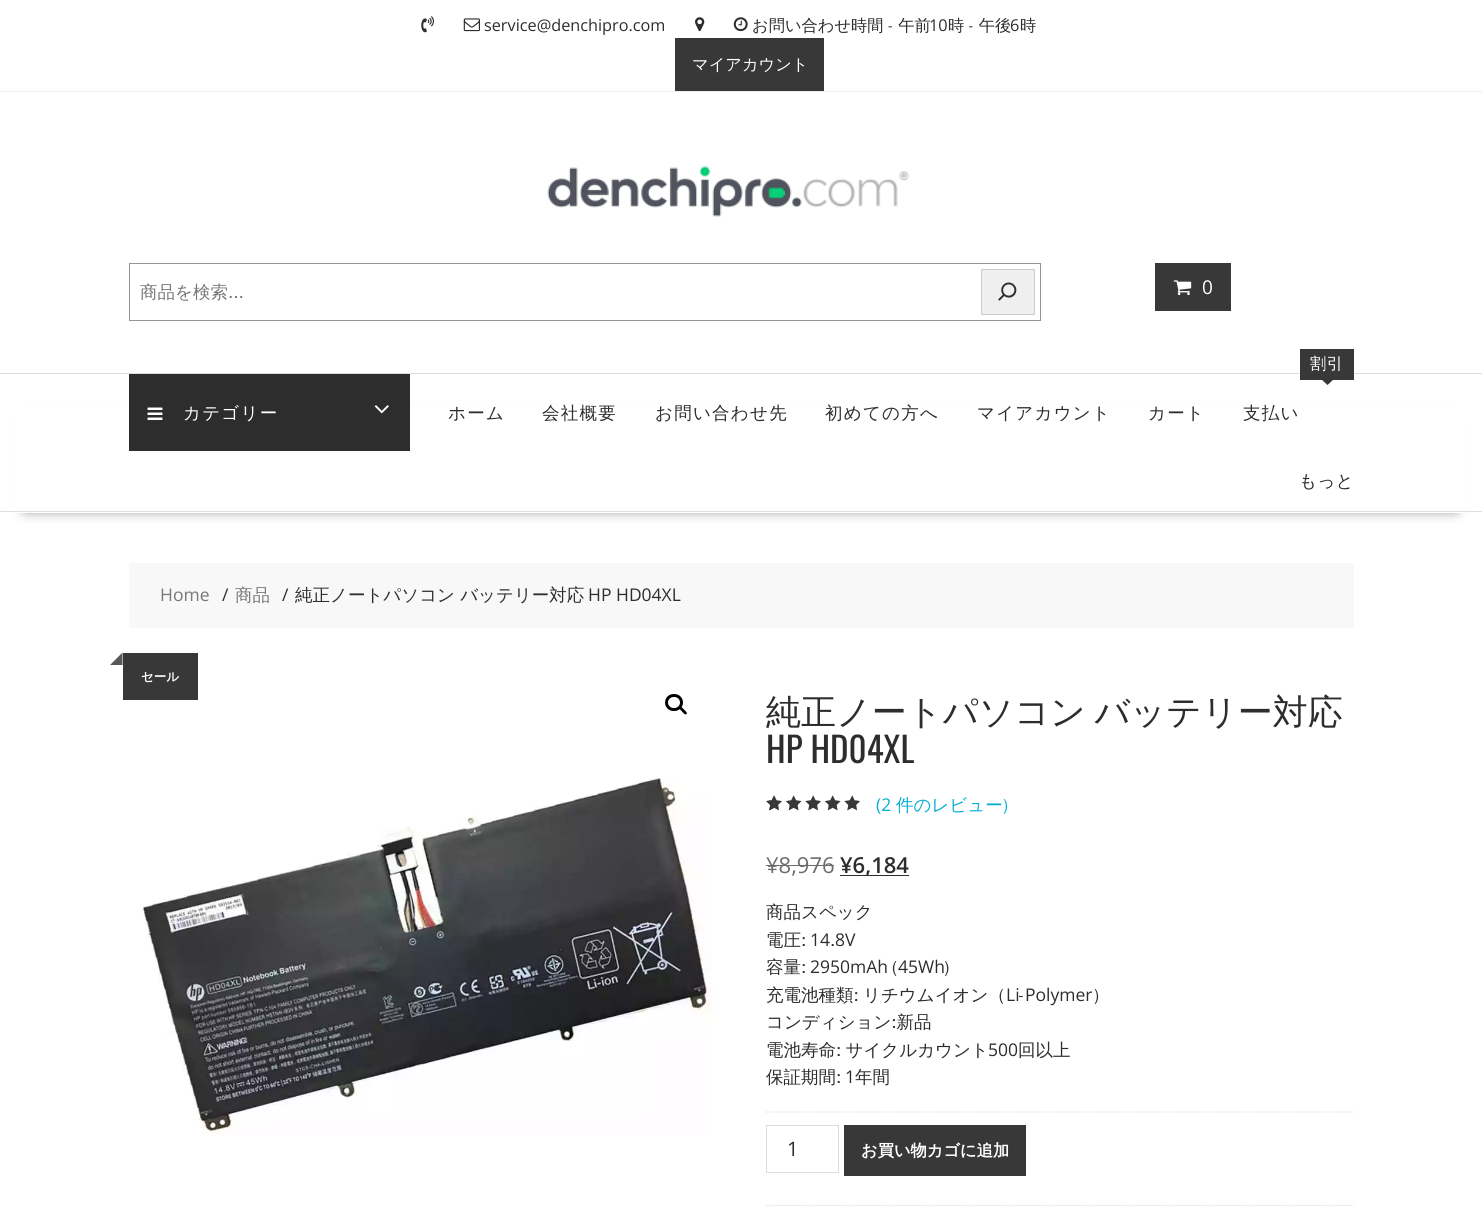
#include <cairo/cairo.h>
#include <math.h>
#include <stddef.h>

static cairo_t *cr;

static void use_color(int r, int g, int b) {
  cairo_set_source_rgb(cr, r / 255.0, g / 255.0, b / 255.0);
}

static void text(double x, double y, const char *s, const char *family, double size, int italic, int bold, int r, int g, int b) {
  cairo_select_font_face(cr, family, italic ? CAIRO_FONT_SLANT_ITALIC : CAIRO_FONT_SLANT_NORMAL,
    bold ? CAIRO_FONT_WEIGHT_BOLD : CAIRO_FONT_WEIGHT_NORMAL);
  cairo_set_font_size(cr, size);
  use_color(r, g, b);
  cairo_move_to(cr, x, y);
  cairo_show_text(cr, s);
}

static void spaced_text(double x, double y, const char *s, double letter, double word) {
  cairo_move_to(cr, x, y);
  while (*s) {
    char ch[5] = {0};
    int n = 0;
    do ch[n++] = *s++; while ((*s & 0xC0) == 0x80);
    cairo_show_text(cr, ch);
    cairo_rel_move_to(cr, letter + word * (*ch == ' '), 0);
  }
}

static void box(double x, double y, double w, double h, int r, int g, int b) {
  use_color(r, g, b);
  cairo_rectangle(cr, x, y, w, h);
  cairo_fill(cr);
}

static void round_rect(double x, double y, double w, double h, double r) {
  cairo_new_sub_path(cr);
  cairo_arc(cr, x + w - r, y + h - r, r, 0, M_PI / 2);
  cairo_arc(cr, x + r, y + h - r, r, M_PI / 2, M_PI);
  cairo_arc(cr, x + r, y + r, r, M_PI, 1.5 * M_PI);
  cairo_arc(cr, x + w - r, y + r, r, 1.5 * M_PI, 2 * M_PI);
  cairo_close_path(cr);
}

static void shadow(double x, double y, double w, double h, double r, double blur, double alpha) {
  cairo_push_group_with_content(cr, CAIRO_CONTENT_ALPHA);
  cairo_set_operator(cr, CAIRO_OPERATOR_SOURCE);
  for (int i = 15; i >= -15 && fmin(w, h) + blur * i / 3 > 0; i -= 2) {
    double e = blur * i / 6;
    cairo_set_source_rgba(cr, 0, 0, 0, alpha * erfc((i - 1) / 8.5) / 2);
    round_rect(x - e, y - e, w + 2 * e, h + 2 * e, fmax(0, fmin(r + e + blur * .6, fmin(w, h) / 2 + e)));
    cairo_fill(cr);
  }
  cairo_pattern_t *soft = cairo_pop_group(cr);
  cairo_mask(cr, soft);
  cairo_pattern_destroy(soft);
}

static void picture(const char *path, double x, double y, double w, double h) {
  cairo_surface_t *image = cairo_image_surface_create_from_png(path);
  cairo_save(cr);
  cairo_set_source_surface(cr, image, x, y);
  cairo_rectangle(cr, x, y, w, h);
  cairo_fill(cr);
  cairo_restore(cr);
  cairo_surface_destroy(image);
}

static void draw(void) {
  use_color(255, 255, 255);
  cairo_paint(cr);
  box(0, 91, 1482, 1, 238, 238, 238);
  picture("img_01.png", 421, 16, 13, 17);
  picture("img_02.png", 463, 18, 17, 14);
  picture("img_03.png", 695, 17, 10, 15);
  picture("img_04.png", 733, 17, 15, 15);
  box(675, 38, 149, 53, 56, 56, 56);
  picture("img_05.png", 547, 166, 362, 51);
  cairo_rectangle(cr, 129.5, 263.5, 911, 57);
  use_color(148, 148, 148);
  cairo_set_line_width(cr, 1);
  cairo_stroke(cr);
  use_color(239, 239, 239);
  cairo_rectangle(cr, 981.5, 269.5, 53, 45);
  cairo_fill_preserve(cr);
  use_color(204, 204, 204);
  cairo_stroke(cr);
  picture("img_06.png", 998, 282, 19, 19);
  box(1155, 263, 76, 48, 56, 56, 56);
  picture("img_07.png", 1173, 280, 19, 16);
  use_color(0, 0, 0);
  shadow(26, 420, 1430, 88, 0, 7, 0.75);
  box(11, 405, 1460, 108, 255, 255, 255);
  box(0, 373, 1482, 1, 222, 222, 222);
  box(0, 511, 1482, 1, 222, 222, 222);
  box(129, 374, 281, 77, 45, 45, 45);
  picture("img_08.png", 147, 407, 16, 13);
  picture("img_09.png", 374, 405, 15, 9);
  box(1300, 349, 54, 31, 56, 56, 56);
  cairo_new_path(cr);
  cairo_move_to(cr, 1321, 379);
  cairo_line_to(cr, 1334, 379);
  cairo_line_to(cr, 1327.5, 385);
  cairo_close_path(cr);
  cairo_fill(cr);
  box(129, 563, 1225, 65, 248, 248, 248);
  box(123, 653, 75, 47, 56, 56, 56);
  use_color(86, 89, 85);
  cairo_new_path(cr);
  cairo_move_to(cr, 122.5, 652.5);
  cairo_line_to(cr, 122.5, 665);
  cairo_line_to(cr, 110, 665);
  cairo_close_path(cr);
  cairo_fill(cr);
  round_rect(666.5, 695.5, 15, 14, 7);
  use_color(0, 0, 0);
  cairo_set_line_width(cr, 3);
  cairo_stroke(cr);
  cairo_new_path(cr);
  cairo_move_to(cr, 679.5, 707);
  cairo_curve_to(cr, 681, 705.5, 683, 709, 684, 709.5);
  cairo_curve_to(cr, 684.5, 710.5, 688, 712.5, 686.5, 714);
  cairo_curve_to(cr, 685, 715.5, 683, 712.5, 682, 711.5);
  cairo_curve_to(cr, 681.5, 710.5, 678, 708.5, 679.5, 707);
  cairo_close_path(cr);
  cairo_fill(cr);
  picture("img_10.png", 141, 778, 572, 358);
  picture("img_11.png", 766, 795, 94, 16);
  picture("img_12.png", 766, 795, 94, 16);
  picture("img_13.png", 766, 795, 8, 16);
  box(766, 865, 68, 1, 108, 108, 108);
  box(840, 875, 69, 1, 45, 45, 45);
  cairo_new_path(cr);
  cairo_move_to(cr, 766, 1112);
  cairo_line_to(cr, 1354, 1112);
  use_color(221, 221, 221);
  cairo_set_line_width(cr, 1.2);
  cairo_set_dash(cr, (double[]){1.25, 1.25}, 2, 0);
  cairo_stroke(cr);
  cairo_new_path(cr);
  cairo_move_to(cr, 766, 1205.5);
  cairo_line_to(cr, 1354, 1205.5);
  cairo_stroke(cr);
  cairo_rectangle(cr, 766.5, 1125.5, 72, 47);
  cairo_set_line_width(cr, 1);
  cairo_set_dash(cr, NULL, 0, 0);
  cairo_stroke(cr);
  box(844, 1125, 182, 51, 56, 56, 56);
  text(484, 31, "service@denchipro.com", "Open Sans", 16.25, 0, 0, 45, 45, 45);
  text(752, 31, "お問い合わせ時間 - 午前", "WenQuanYi Zen Hei Medium", 16.25, 0, 0, 45, 45, 45);
  text(929, 31, "10", "Open Sans", 16.25, 0, 0, 45, 45, 45);
  text(948, 31, "時 - 午後", "WenQuanYi Zen Hei Medium", 16.25, 0, 0, 45, 45, 45);
  text(1010, 31, "6", "Open Sans", 16.25, 0, 0, 45, 45, 45);
  text(1020, 31, "時", "WenQuanYi Zen Hei Medium", 16.25, 0, 0, 45, 45, 45);
  text(692, 70, "マイアカウント", "WenQuanYi Zen Hei Medium", 16.25, 0, 0, 255, 255, 255);
  text(140, 298, "商品を検索...", "WenQuanYi Zen Hei Medium", 17.5, 0, 0, 119, 119, 119);
  text(1202, 294, "0", "Open Sans", 19, 0, 0, 255, 255, 255);
  cairo_select_font_face(cr, "WenQuanYi Zen Hei Medium", CAIRO_FONT_SLANT_NORMAL, CAIRO_FONT_WEIGHT_NORMAL);
  cairo_set_font_size(cr, 17.5);
  spaced_text(183, 419, "カテゴリー", 1.25, 0);
  use_color(45, 45, 45);
  spaced_text(448, 419, "ホーム", 1.25, 0);
  spaced_text(542, 419, "会社概要", 1.25, 0);
  spaced_text(655, 419, "お問い合わせ先", 1.25, 0);
  spaced_text(825, 419, "初めての方へ", 1.25, 0);
  spaced_text(977, 419, "マイアカウント", 1.25, 0);
  spaced_text(1148, 419, "カート", 1.25, 0);
  spaced_text(1243, 419, "支払い", 1.25, 0);
  cairo_set_font_size(cr, 16.25);
  use_color(255, 255, 255);
  spaced_text(1310, 369, "割引", 0.5, 0);
  cairo_set_font_size(cr, 17.5);
  use_color(45, 45, 45);
  spaced_text(1299, 487, "もっと", 0.5, 0);
  text(160, 601, "Home", "Open Sans", 17.5, 0, 0, 119, 119, 119);
  text(222, 601, "/", "Open Sans", 17.5, 0, 0, 45, 45, 45);
  text(235, 601, "商品", "WenQuanYi Zen Hei Medium", 17.5, 0, 0, 119, 119, 119);
  text(282, 601, "/", "Open Sans", 17.5, 0, 0, 45, 45, 45);
  text(295, 601, "純正ノートパソコン バッテリー対応", "WenQuanYi Zen Hei Medium", 17.5, 0, 0, 45, 45, 45);
  text(588, 601, "HP HD04XL", "Open Sans", 17.5, 0, 0, 45, 45, 45);
  text(141, 681, "セール", "WenQuanYi Zen Hei", 12.5, 0, 1, 255, 255, 255);
  cairo_select_font_face(cr, "WenQuanYi Zen Hei Medium", CAIRO_FONT_SLANT_NORMAL, CAIRO_FONT_WEIGHT_NORMAL);
  cairo_set_font_size(cr, 35);
  use_color(45, 45, 45);
  spaced_text(766, 724, "純正ノートパソコン バッテリー対応", 0, -2);
  text(766, 763, "HP HD04XL", "Oswald", 35, 0, 0, 45, 45, 45);
  text(876, 811, "(2", "Open Sans", 17.5, 0, 0, 7, 175, 212);
  text(896, 811, "件のレビュー)", "WenQuanYi Zen Hei Medium", 17.5, 0, 0, 7, 175, 212);
  text(766, 873, "¥8,976", "Open Sans", 22, 0, 0, 108, 108, 108);
  text(840, 873, "¥6,184", "Open Sans SemiBold", 22, 0, 0, 45, 45, 45);
  text(766, 918, "商品スペック", "WenQuanYi Zen Hei Medium", 17.5, 0, 0, 45, 45, 45);
  text(766, 946, "電圧:", "WenQuanYi Zen Hei Medium", 17.5, 0, 0, 45, 45, 45);
  text(810, 946, "14", "Open Sans", 17.5, 0, 0, 45, 45, 45);
  text(830, 946, ".", "WenQuanYi Zen Hei Medium", 17.5, 0, 0, 45, 45, 45);
  text(835, 946, "8V", "Open Sans", 17.5, 0, 0, 45, 45, 45);
  text(766, 973, "容量:", "WenQuanYi Zen Hei Medium", 17.5, 0, 0, 45, 45, 45);
  text(810, 973, "2950mAh", "Open Sans", 17.5, 0, 0, 45, 45, 45);
  text(892, 973, "(", "WenQuanYi Zen Hei Medium", 17.5, 0, 0, 45, 45, 45);
  text(898, 973, "45Wh", "Open Sans", 17.5, 0, 0, 45, 45, 45);
  text(944, 973, ")", "WenQuanYi Zen Hei Medium", 17.5, 0, 0, 45, 45, 45);
  spaced_text(766, 1001, "充電池種類: リチウムイオン（", 0, -1);
  text(1006, 1001, "Li", "Open Sans", 17.5, 0, 0, 45, 45, 45);
  text(1019, 1001, "-", "WenQuanYi Zen Hei Medium", 17.5, 0, 0, 45, 45, 45);
  text(1025, 1001, "Polymer", "Open Sans", 17.5, 0, 0, 45, 45, 45);
  text(1092, 1001, "）", "WenQuanYi Zen Hei Medium", 17.5, 0, 0, 45, 45, 45);
  text(766, 1028, "コンディション:新品", "WenQuanYi Zen Hei Medium", 17.5, 0, 0, 45, 45, 45);
  spaced_text(766, 1056, "電池寿命: サイクルカウント", 0, -1);
  text(988, 1056, "500", "Open Sans", 17.5, 0, 0, 45, 45, 45);
  text(1018, 1056, "回以上", "WenQuanYi Zen Hei Medium", 17.5, 0, 0, 45, 45, 45);
  text(766, 1083, "保証期間:", "WenQuanYi Zen Hei Medium", 17.5, 0, 0, 45, 45, 45);
  text(845, 1083, "1", "Open Sans", 17.5, 0, 0, 45, 45, 45);
  text(855, 1083, "年間", "WenQuanYi Zen Hei Medium", 17.5, 0, 0, 45, 45, 45);
  text(787, 1156, "1", "Open Sans", 20, 0, 0, 45, 45, 45);
  text(861, 1156, "お買い物カゴに追加", "WenQuanYi Zen Hei", 16.25, 0, 1, 255, 255, 255);
}

int main(void) {
  cairo_surface_t *surface = cairo_image_surface_create(CAIRO_FORMAT_RGB24, 1482, 1228);
  cr = cairo_create(surface);
  cairo_font_options_t *options = cairo_font_options_create();
  cairo_font_options_set_hint_metrics(options, CAIRO_HINT_METRICS_OFF);
  cairo_font_options_set_hint_style(options, CAIRO_HINT_STYLE_NONE);
  cairo_set_font_options(cr, options);
  cairo_set_miter_limit(cr, 4);
  draw();
  cairo_surface_write_to_png(surface, "out.png");
  cairo_font_options_destroy(options);
  cairo_destroy(cr);
  cairo_surface_destroy(surface);
  return 0;
}
